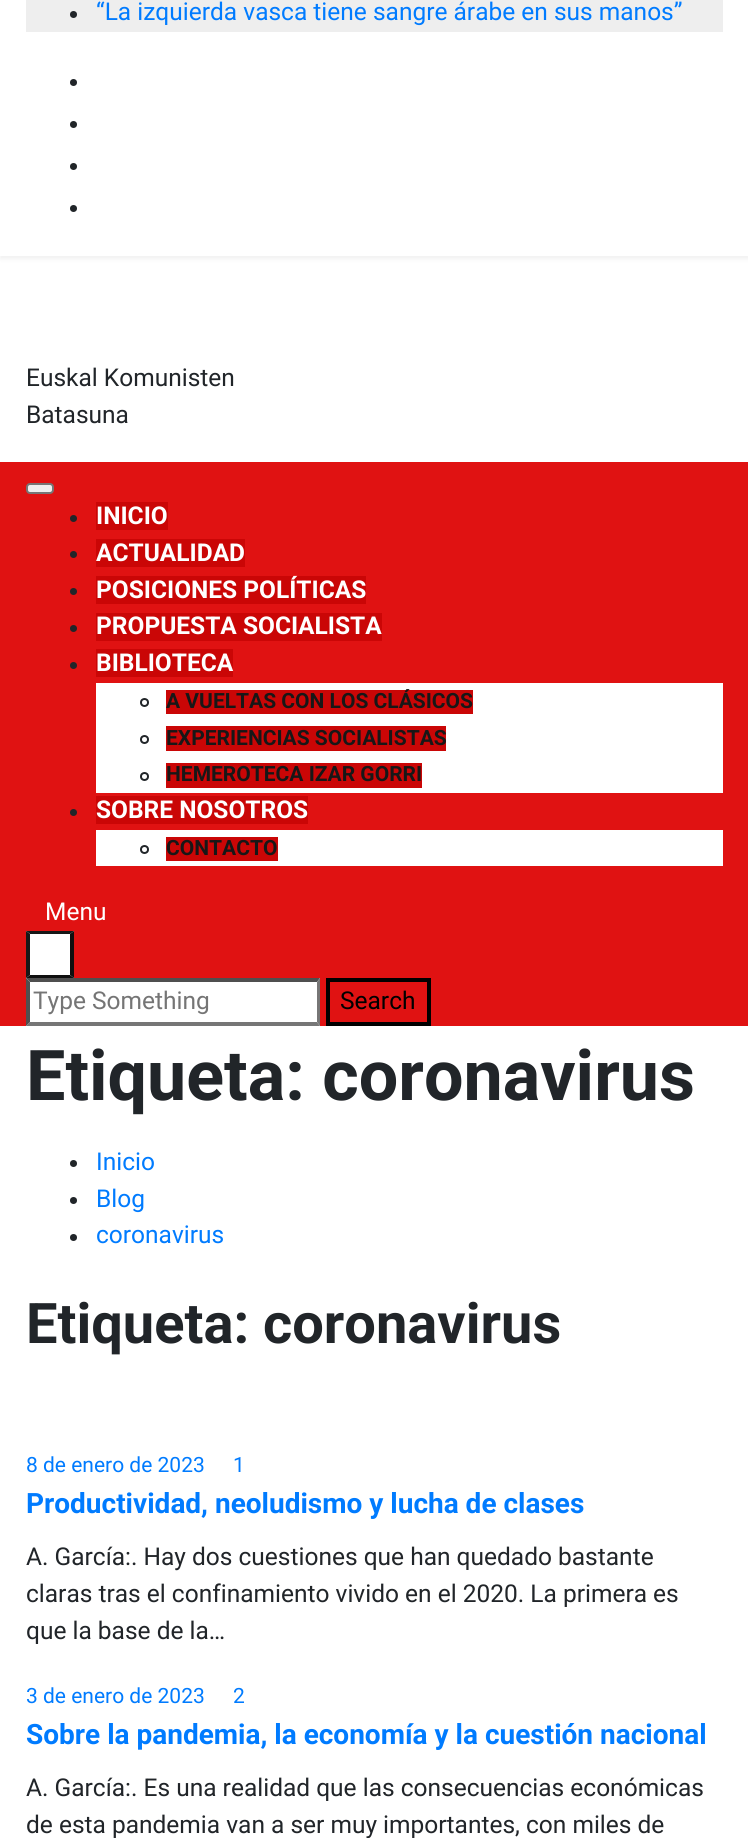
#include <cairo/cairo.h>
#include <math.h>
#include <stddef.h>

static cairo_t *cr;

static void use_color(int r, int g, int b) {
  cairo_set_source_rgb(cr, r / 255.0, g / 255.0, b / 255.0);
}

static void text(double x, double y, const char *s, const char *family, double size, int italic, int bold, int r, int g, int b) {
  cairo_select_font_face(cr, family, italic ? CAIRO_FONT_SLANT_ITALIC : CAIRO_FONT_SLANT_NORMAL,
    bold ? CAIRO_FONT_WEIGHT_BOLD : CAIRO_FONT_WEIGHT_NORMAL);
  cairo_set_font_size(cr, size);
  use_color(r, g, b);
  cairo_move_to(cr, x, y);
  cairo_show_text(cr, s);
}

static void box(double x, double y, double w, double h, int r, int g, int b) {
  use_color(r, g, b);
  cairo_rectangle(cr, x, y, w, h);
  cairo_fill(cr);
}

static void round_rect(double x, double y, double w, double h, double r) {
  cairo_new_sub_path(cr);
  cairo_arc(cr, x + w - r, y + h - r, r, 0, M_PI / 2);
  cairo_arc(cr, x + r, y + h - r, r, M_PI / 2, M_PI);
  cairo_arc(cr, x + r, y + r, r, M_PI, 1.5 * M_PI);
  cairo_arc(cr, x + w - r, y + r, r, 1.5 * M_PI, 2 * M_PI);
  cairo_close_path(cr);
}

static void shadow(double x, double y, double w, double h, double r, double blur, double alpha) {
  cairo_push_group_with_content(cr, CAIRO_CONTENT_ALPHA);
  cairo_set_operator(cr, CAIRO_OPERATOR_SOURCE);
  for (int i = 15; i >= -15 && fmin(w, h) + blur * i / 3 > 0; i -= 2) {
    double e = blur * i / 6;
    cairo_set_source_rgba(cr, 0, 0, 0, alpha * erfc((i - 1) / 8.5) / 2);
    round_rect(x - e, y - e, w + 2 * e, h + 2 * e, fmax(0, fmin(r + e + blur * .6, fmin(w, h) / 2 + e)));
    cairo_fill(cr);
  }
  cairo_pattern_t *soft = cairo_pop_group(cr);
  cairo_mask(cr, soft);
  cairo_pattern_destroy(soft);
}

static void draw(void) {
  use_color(255, 255, 255);
  cairo_paint(cr);
  use_color(241, 241, 241);
  shadow(0, -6, 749, 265, 0, 2, 1);
  box(0, 0, 748, 256, 255, 255, 255);
  box(26, 0, 697, 32, 238, 238, 238);
  use_color(33, 37, 41);
  cairo_arc(cr, 73.5, 14.5, 3.5, 0, 2 * M_PI);
  cairo_fill(cr);
  cairo_arc(cr, 73.5, 82.5, 3.5, 0, 2 * M_PI);
  cairo_fill(cr);
  cairo_arc(cr, 73.5, 124.5, 3.5, 0, 2 * M_PI);
  cairo_fill(cr);
  cairo_arc(cr, 73.5, 166.5, 3.5, 0, 2 * M_PI);
  cairo_fill(cr);
  cairo_arc(cr, 73.5, 208.5, 3.5, 0, 2 * M_PI);
  cairo_fill(cr);
  box(0, 462, 748, 564, 224, 18, 18);
  use_color(239, 239, 239);
  round_rect(27, 484, 26, 9, 3);
  cairo_fill_preserve(cr);
  use_color(118, 118, 118);
  cairo_stroke(cr);
  use_color(33, 37, 41);
  cairo_arc(cr, 73.5, 518.5, 3.5, 0, 2 * M_PI);
  cairo_fill(cr);
  box(96, 502, 72, 28, 202, 6, 6);
  use_color(33, 37, 41);
  cairo_arc(cr, 73.5, 554.5, 3.5, 0, 2 * M_PI);
  cairo_fill(cr);
  box(96, 539, 149, 28, 202, 6, 6);
  use_color(33, 37, 41);
  cairo_arc(cr, 73.5, 591.5, 3.5, 0, 2 * M_PI);
  cairo_fill(cr);
  box(96, 576, 270, 28, 202, 6, 6);
  use_color(33, 37, 41);
  cairo_arc(cr, 73.5, 628.5, 3.5, 0, 2 * M_PI);
  cairo_fill(cr);
  box(96, 613, 286, 28, 202, 6, 6);
  use_color(33, 37, 41);
  cairo_arc(cr, 73.5, 665.5, 3.5, 0, 2 * M_PI);
  cairo_fill(cr);
  box(96, 649, 137, 28, 202, 6, 6);
  box(96, 683, 627, 110, 255, 255, 255);
  cairo_arc(cr, 144.5, 702.5, 3.5, 0, 2 * M_PI);
  use_color(33, 37, 41);
  cairo_stroke(cr);
  box(166, 690, 307, 24, 202, 6, 6);
  cairo_arc(cr, 144.5, 739.5, 3.5, 0, 2 * M_PI);
  use_color(33, 37, 41);
  cairo_stroke(cr);
  box(166, 726, 280, 25, 202, 6, 6);
  cairo_arc(cr, 144.5, 776.5, 3.5, 0, 2 * M_PI);
  use_color(33, 37, 41);
  cairo_stroke(cr);
  box(166, 763, 256, 25, 202, 6, 6);
  use_color(33, 37, 41);
  cairo_arc(cr, 73.5, 812.5, 3.5, 0, 2 * M_PI);
  cairo_fill(cr);
  box(96, 796, 212, 28, 202, 6, 6);
  box(96, 830, 627, 36, 255, 255, 255);
  cairo_arc(cr, 144.5, 849.5, 3.5, 0, 2 * M_PI);
  use_color(33, 37, 41);
  cairo_stroke(cr);
  box(166, 837, 112, 24, 202, 6, 6);
  box(26, 931, 48, 47, 255, 255, 255);
  use_color(23, 23, 23);
  cairo_new_path(cr);
  cairo_move_to(cr, 26, 931);
  cairo_line_to(cr, 74, 931);
  cairo_line_to(cr, 70, 934);
  cairo_line_to(cr, 30, 934);
  cairo_close_path(cr);
  cairo_fill(cr);
  use_color(15, 15, 15);
  cairo_new_path(cr);
  cairo_move_to(cr, 74, 931);
  cairo_line_to(cr, 74, 978);
  cairo_line_to(cr, 70, 975);
  cairo_line_to(cr, 70, 934);
  cairo_close_path(cr);
  cairo_fill(cr);
  cairo_new_path(cr);
  cairo_move_to(cr, 74, 978);
  cairo_line_to(cr, 26, 978);
  cairo_line_to(cr, 30, 975);
  cairo_line_to(cr, 70, 975);
  cairo_close_path(cr);
  cairo_fill(cr);
  use_color(23, 23, 23);
  cairo_new_path(cr);
  cairo_move_to(cr, 26, 978);
  cairo_line_to(cr, 26, 931);
  cairo_line_to(cr, 30, 934);
  cairo_line_to(cr, 30, 975);
  cairo_close_path(cr);
  cairo_fill(cr);
  box(26, 978, 294, 48, 255, 255, 255);
  use_color(79, 79, 79);
  cairo_new_path(cr);
  cairo_move_to(cr, 26, 978);
  cairo_line_to(cr, 320, 978);
  cairo_line_to(cr, 317, 982);
  cairo_line_to(cr, 30, 982);
  cairo_close_path(cr);
  cairo_fill(cr);
  use_color(118, 118, 118);
  cairo_new_path(cr);
  cairo_move_to(cr, 320, 978);
  cairo_line_to(cr, 320, 1026);
  cairo_line_to(cr, 317, 1022);
  cairo_line_to(cr, 317, 982);
  cairo_close_path(cr);
  cairo_fill(cr);
  cairo_new_path(cr);
  cairo_move_to(cr, 320, 1026);
  cairo_line_to(cr, 26, 1026);
  cairo_line_to(cr, 30, 1022);
  cairo_line_to(cr, 317, 1022);
  cairo_close_path(cr);
  cairo_fill(cr);
  use_color(79, 79, 79);
  cairo_new_path(cr);
  cairo_move_to(cr, 26, 1026);
  cairo_line_to(cr, 26, 978);
  cairo_line_to(cr, 30, 982);
  cairo_line_to(cr, 30, 1022);
  cairo_close_path(cr);
  cairo_fill(cr);
  cairo_rectangle(cr, 328, 980, 101, 44);
  use_color(0, 0, 0);
  cairo_set_line_width(cr, 4);
  cairo_stroke(cr);
  use_color(33, 37, 41);
  cairo_arc(cr, 73.5, 1163.5, 3.5, 0, 2 * M_PI);
  cairo_fill(cr);
  cairo_arc(cr, 73.5, 1200.5, 3.5, 0, 2 * M_PI);
  cairo_fill(cr);
  cairo_arc(cr, 73.5, 1237.5, 3.5, 0, 2 * M_PI);
  cairo_fill(cr);
  text(96, 20, "“La izquierda vasca tiene sangre árabe en sus manos”", "Roboto", 24.5, 0, 0, 0, 123, 255);
  text(26, 386, "Euskal Komunisten", "Roboto", 24.5, 0, 0, 33, 37, 41);
  text(26, 423, "Batasuna", "Roboto", 24.5, 0, 0, 33, 37, 41);
  text(96, 524, "INICIO", "Roboto", 24.5, 0, 1, 255, 255, 255);
  text(96, 561, "ACTUALIDAD", "Roboto", 24.5, 0, 1, 255, 255, 255);
  text(96, 598, "POSICIONES POLÍTICAS", "Roboto", 24.5, 0, 1, 255, 255, 255);
  text(96, 634, "PROPUESTA SOCIALISTA", "Roboto", 24.5, 0, 1, 255, 255, 255);
  text(96, 671, "BIBLIOTECA", "Roboto", 24.5, 0, 1, 255, 255, 255);
  text(166, 708, "A VUELTAS CON LOS CLÁSICOS", "Roboto", 21, 0, 1, 23, 23, 23);
  text(166, 745, "EXPERIENCIAS SOCIALISTAS", "Roboto", 21, 0, 1, 23, 23, 23);
  text(166, 781, "HEMEROTECA IZAR GORRI", "Roboto", 21, 0, 1, 23, 23, 23);
  text(96, 818, "SOBRE NOSOTROS", "Roboto", 24.5, 0, 1, 255, 255, 255);
  text(166, 855, "CONTACTO", "Roboto", 21, 0, 1, 23, 23, 23);
  text(45, 920, "Menu", "Roboto", 24.5, 0, 0, 255, 255, 255);
  text(33, 1009, "Type Something", "Roboto", 24.5, 0, 0, 117, 117, 117);
  text(340, 1009, "Search", "Roboto", 24.5, 0, 0, 0, 0, 0);
  text(26, 1100, "Etiqueta: coronavirus", "Roboto", 70, 0, 1, 33, 37, 41);
  text(96, 1170, "Inicio", "Roboto", 24.5, 0, 0, 0, 123, 255);
  text(96, 1207, "Blog", "Roboto", 24.5, 0, 0, 0, 123, 255);
  text(96, 1243, "coronavirus", "Roboto", 24.5, 0, 0, 0, 123, 255);
  text(26, 1343, "Etiqueta: coronavirus", "Roboto", 56, 0, 1, 33, 37, 41);
  text(26, 1472, "8 de enero de 2023", "Roboto", 21, 0, 0, 0, 123, 255);
  text(233, 1472, "1", "Roboto", 21, 0, 0, 0, 123, 255);
  text(26, 1513, "Productividad, neoludismo y lucha de clases", "Roboto", 28, 0, 1, 0, 123, 255);
  text(26, 1565, "A. García:. Hay dos cuestiones que han quedado bastante", "Roboto", 24.5, 0, 0, 33, 37, 41);
  text(26, 1602, "claras tras el confinamiento vivido en el 2020. La primera es", "Roboto", 24.5, 0, 0, 33, 37, 41);
  text(26, 1639, "que la base de la…", "Roboto", 24.5, 0, 0, 33, 37, 41);
  text(26, 1703, "3 de enero de 2023", "Roboto", 21, 0, 0, 0, 123, 255);
  text(233, 1703, "2", "Roboto", 21, 0, 0, 0, 123, 255);
  text(26, 1744, "Sobre la pandemia, la economía y la cuestión nacional", "Roboto", 28, 0, 1, 0, 123, 255);
  text(26, 1796, "A. García:. Es una realidad que las consecuencias económicas", "Roboto", 24.5, 0, 0, 33, 37, 41);
  text(26, 1833, "de esta pandemia van a ser muy importantes, con miles de", "Roboto", 24.5, 0, 0, 33, 37, 41);
}

int main(void) {
  cairo_surface_t *surface = cairo_image_surface_create(CAIRO_FORMAT_RGB24, 748, 1838);
  cr = cairo_create(surface);
  cairo_font_options_t *options = cairo_font_options_create();
  cairo_font_options_set_hint_metrics(options, CAIRO_HINT_METRICS_OFF);
  cairo_font_options_set_hint_style(options, CAIRO_HINT_STYLE_NONE);
  cairo_set_font_options(cr, options);
  cairo_set_miter_limit(cr, 4);
  draw();
  cairo_surface_write_to_png(surface, "out.png");
  cairo_font_options_destroy(options);
  cairo_destroy(cr);
  cairo_surface_destroy(surface);
  return 0;
}
